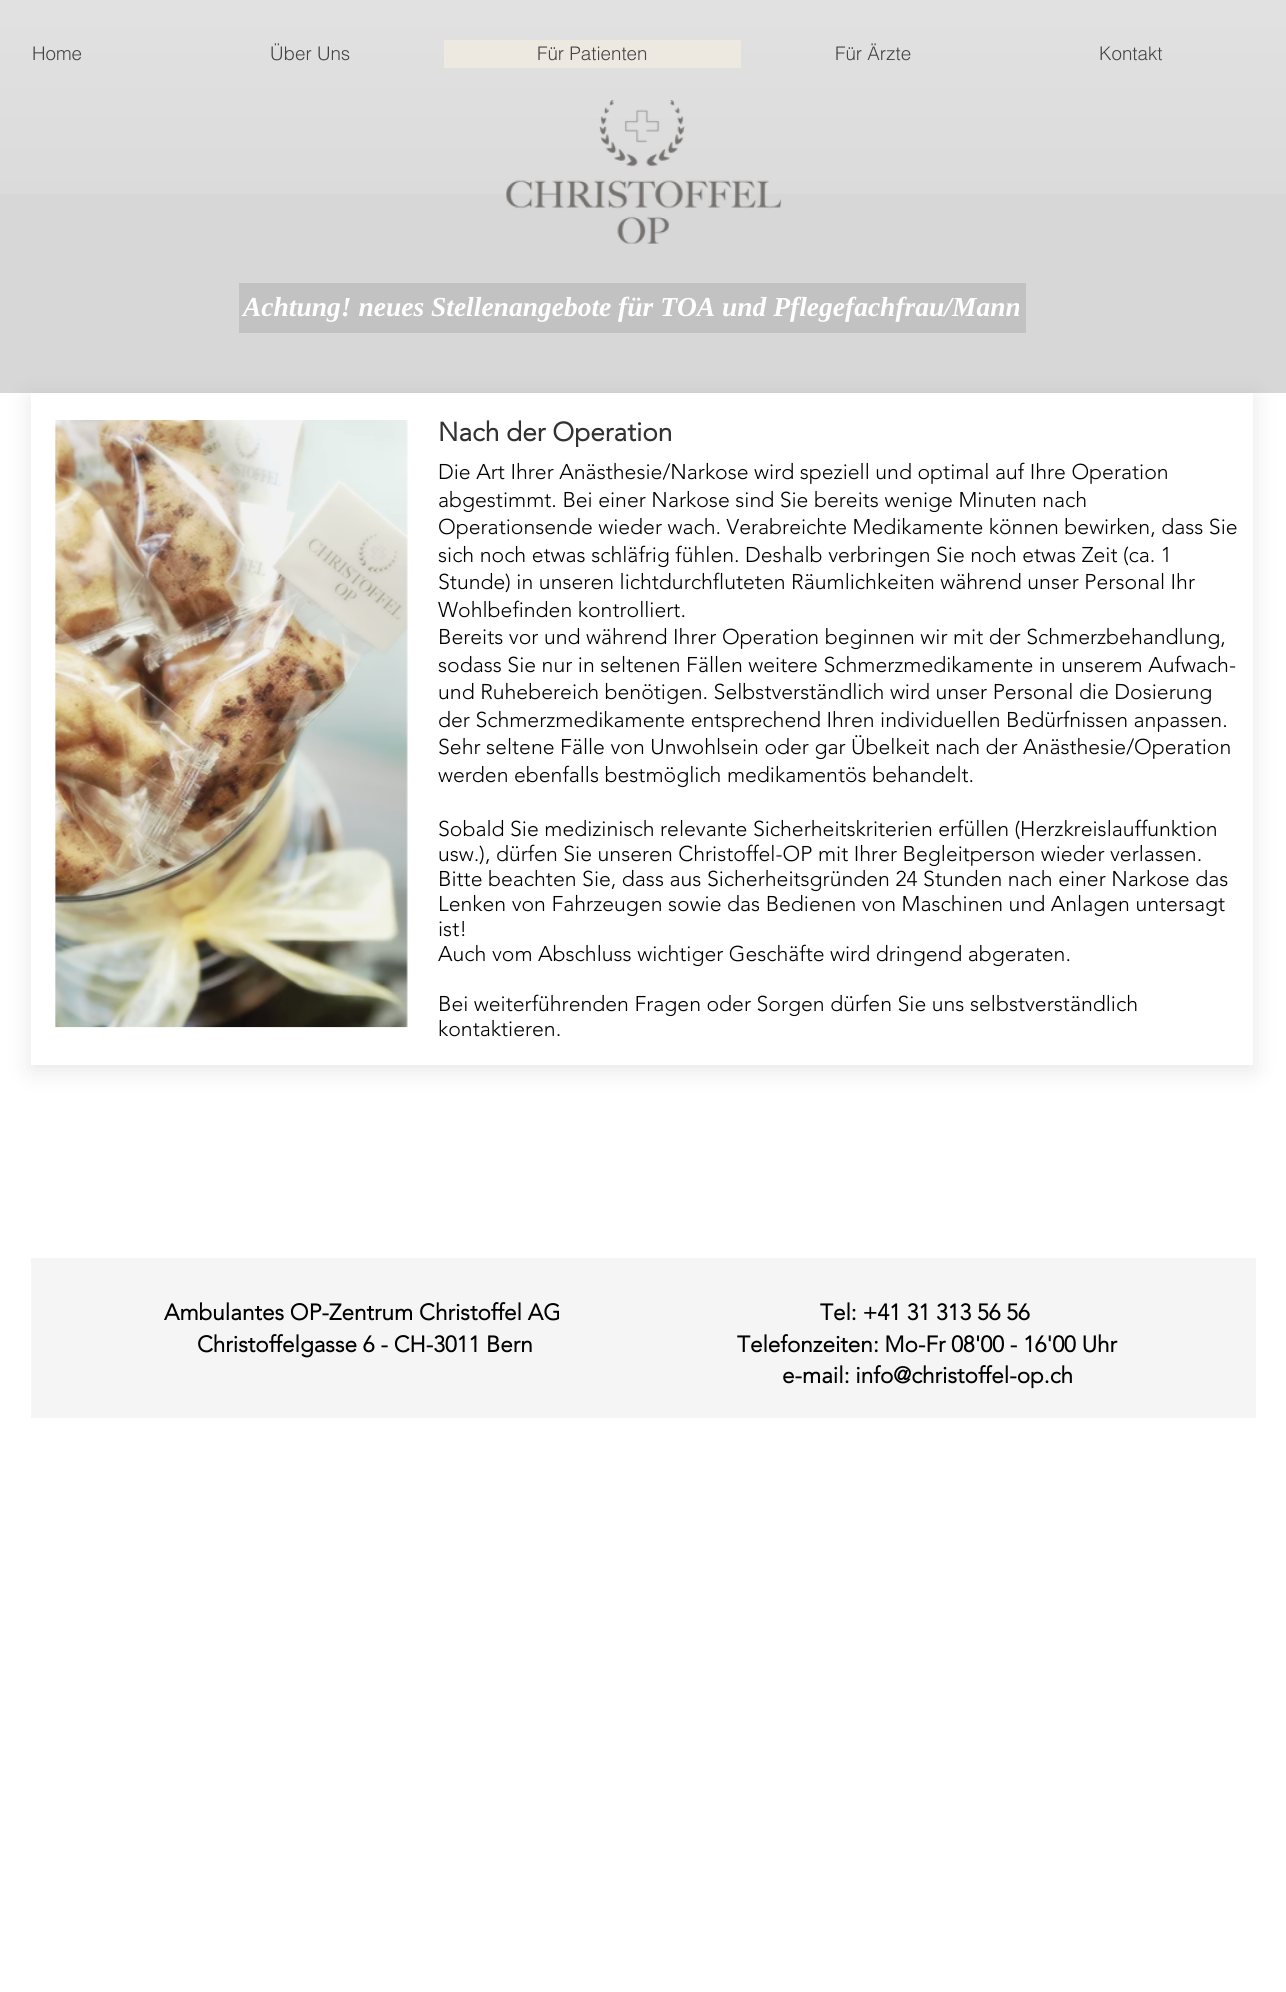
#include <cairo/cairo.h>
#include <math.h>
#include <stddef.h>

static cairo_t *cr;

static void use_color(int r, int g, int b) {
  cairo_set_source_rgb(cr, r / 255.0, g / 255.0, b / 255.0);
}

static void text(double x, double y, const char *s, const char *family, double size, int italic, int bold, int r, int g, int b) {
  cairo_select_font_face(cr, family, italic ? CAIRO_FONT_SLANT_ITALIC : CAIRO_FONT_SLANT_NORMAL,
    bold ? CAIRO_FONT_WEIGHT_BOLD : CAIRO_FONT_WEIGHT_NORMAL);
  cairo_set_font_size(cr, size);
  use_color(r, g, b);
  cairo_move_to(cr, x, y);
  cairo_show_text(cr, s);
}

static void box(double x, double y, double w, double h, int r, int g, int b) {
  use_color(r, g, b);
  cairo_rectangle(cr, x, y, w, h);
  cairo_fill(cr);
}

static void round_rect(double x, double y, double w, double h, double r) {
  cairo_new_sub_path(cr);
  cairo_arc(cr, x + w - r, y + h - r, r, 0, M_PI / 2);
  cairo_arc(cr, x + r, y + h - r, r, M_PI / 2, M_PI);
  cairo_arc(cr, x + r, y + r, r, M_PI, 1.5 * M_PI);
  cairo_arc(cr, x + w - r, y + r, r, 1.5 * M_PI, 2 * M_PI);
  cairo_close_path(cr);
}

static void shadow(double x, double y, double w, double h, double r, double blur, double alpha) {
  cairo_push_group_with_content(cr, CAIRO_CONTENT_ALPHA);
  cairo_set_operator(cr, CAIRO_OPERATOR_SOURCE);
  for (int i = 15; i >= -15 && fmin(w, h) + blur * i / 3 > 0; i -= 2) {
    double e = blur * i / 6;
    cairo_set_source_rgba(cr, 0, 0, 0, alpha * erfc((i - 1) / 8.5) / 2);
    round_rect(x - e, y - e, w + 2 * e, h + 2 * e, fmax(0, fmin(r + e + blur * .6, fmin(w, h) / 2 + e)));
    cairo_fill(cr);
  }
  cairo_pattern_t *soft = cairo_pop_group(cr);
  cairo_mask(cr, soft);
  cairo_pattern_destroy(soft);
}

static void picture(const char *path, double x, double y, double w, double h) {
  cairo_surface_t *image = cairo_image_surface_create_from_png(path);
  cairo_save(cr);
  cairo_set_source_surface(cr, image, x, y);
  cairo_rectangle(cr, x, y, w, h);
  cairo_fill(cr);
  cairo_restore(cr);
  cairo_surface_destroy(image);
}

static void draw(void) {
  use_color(255, 255, 255);
  cairo_paint(cr);
  box(0, 0, 1286, 393, 215, 215, 215);
  picture("img_01.png", 0, 0, 1286, 194);
  box(444, 40, 297, 28, 237, 233, 225);
  picture("img_02.png", 506, 100, 276, 144);
  box(239, 283, 787, 50, 194, 194, 194);
  use_color(0, 0, 0);
  shadow(31, 398, 1222, 672, 0, 12.5, 0.1);
  box(31, 393, 1222, 672, 255, 255, 255);
  picture("img_03.png", 55, 420, 353, 608);
  box(31, 1258, 1225, 160, 245, 245, 245);
  text(32, 60, "Home", "helvetica Light", 18.75, 0, 0, 68, 68, 68);
  text(270, 60, "Über Uns", "helvetica Light", 18.75, 0, 0, 68, 68, 68);
  text(537, 60, "Für Patienten", "helvetica Light", 18.75, 0, 0, 68, 68, 68);
  text(835, 60, "Für Ärzte", "helvetica Light", 18.75, 0, 0, 68, 68, 68);
  text(1099, 60, "Kontakt", "helvetica Light", 18.75, 0, 0, 68, 68, 68);
  text(243, 316, "Achtung! neues Stellenangebote für TOA und Pflegefachfrau/Mann", "Liberation Serif", 27.5, 1, 1, 255, 255, 255);
  text(438, 441, "Nach der Operation", "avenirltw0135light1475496", 26.25, 0, 1, 51, 49, 49);
  text(438, 479, "Die Art Ihrer Anästhesie/Narkose wird speziell und optimal auf Ihre Operation", "avenirltw0135light1475496 Light", 21.25, 0, 0, 0, 0, 0);
  text(438, 507, "abgestimmt. Bei einer Narkose sind Sie bereits wenige Minuten nach", "avenirltw0135light1475496 Light", 21.25, 0, 0, 0, 0, 0);
  text(438, 534, "Operationsende wieder wach. Verabreichte Medikamente können bewirken, dass Sie", "avenirltw0135light1475496 Light", 21.25, 0, 0, 0, 0, 0);
  text(438, 562, "sich noch etwas schläfrig fühlen. Deshalb verbringen Sie noch etwas Zeit (ca. 1", "avenirltw0135light1475496 Light", 21.25, 0, 0, 0, 0, 0);
  text(438, 589, "Stunde) in unseren lichtdurchfluteten Räumlichkeiten während unser Personal Ihr", "avenirltw0135light1475496 Light", 21.25, 0, 0, 0, 0, 0);
  text(438, 617, "Wohlbefinden kontrolliert.", "avenirltw0135light1475496 Light", 21.25, 0, 0, 0, 0, 0);
  text(438, 644, "Bereits vor und während Ihrer Operation beginnen wir mit der Schmerzbehandlung,", "avenirltw0135light1475496 Light", 21.25, 0, 0, 0, 0, 0);
  text(438, 672, "sodass Sie nur in seltenen Fällen weitere Schmerzmedikamente in unserem Aufwach-", "avenirltw0135light1475496 Light", 21.25, 0, 0, 0, 0, 0);
  text(438, 699, "und Ruhebereich benötigen. Selbstverständlich wird unser Personal die Dosierung", "avenirltw0135light1475496 Light", 21.25, 0, 0, 0, 0, 0);
  text(438, 727, "der Schmerzmedikamente entsprechend Ihren individuellen Bedürfnissen anpassen.", "avenirltw0135light1475496 Light", 21.25, 0, 0, 0, 0, 0);
  text(438, 754, "Sehr seltene Fälle von Unwohlsein oder gar Übelkeit nach der Anästhesie/Operation", "avenirltw0135light1475496 Light", 21.25, 0, 0, 0, 0, 0);
  text(438, 782, "werden ebenfalls bestmöglich medikamentös behandelt.", "avenirltw0135light1475496 Light", 21.25, 0, 0, 0, 0, 0);
  text(438, 836, "Sobald Sie medizinisch relevante Sicherheitskriterien erfüllen (Herzkreislauffunktion", "avenirltw0135light1475496 Light", 21.25, 0, 0, 0, 0, 0);
  text(438, 861, "usw.), dürfen Sie unseren Christoffel-OP mit Ihrer Begleitperson wieder verlassen.", "avenirltw0135light1475496 Light", 21.25, 0, 0, 0, 0, 0);
  text(438, 886, "Bitte beachten Sie, dass aus Sicherheitsgründen 24 Stunden nach einer Narkose das", "avenirltw0135light1475496 Light", 21.25, 0, 0, 0, 0, 0);
  text(438, 911, "Lenken von Fahrzeugen sowie das Bedienen von Maschinen und Anlagen untersagt", "avenirltw0135light1475496 Light", 21.25, 0, 0, 0, 0, 0);
  text(438, 936, "ist!", "avenirltw0135light1475496 Light", 21.25, 0, 0, 0, 0, 0);
  text(438, 961, "Auch vom Abschluss wichtiger Geschäfte wird dringend abgeraten.", "avenirltw0135light1475496 Light", 21.25, 0, 0, 0, 0, 0);
  text(438, 1011, "Bei weiterführenden Fragen oder Sorgen dürfen Sie uns selbstverständlich", "avenirltw0135light1475496 Light", 21.25, 0, 0, 0, 0, 0);
  text(438, 1036, "kontaktieren.", "avenirltw0135light1475496 Light", 21.25, 0, 0, 0, 0, 0);
  text(164, 1320, "Ambulantes OP-Zentrum Christoffel AG", "avenirltw0135light1475496", 22.5, 0, 1, 0, 0, 0);
  text(197, 1352, "Christoffelgasse 6 - CH-3011 Bern", "avenirltw0135light1475496", 22.5, 0, 1, 0, 0, 0);
  text(820, 1320, "Tel: +41 31 313 56 56", "avenirltw0135light1475496", 22.5, 0, 1, 0, 0, 0);
  text(737, 1352, "Telefonzeiten: Mo-Fr 08'00 - 16'00 Uhr", "avenirltw0135light1475496", 22.5, 0, 1, 0, 0, 0);
  text(782, 1383, "e-mail: info@christoffel-op.ch", "avenirltw0135light1475496", 22.5, 0, 1, 0, 0, 0);
}

int main(void) {
  cairo_surface_t *surface = cairo_image_surface_create(CAIRO_FORMAT_RGB24, 1286, 1992);
  cr = cairo_create(surface);
  cairo_font_options_t *options = cairo_font_options_create();
  cairo_font_options_set_hint_metrics(options, CAIRO_HINT_METRICS_OFF);
  cairo_font_options_set_hint_style(options, CAIRO_HINT_STYLE_NONE);
  cairo_set_font_options(cr, options);
  cairo_set_miter_limit(cr, 4);
  draw();
  cairo_surface_write_to_png(surface, "out.png");
  cairo_font_options_destroy(options);
  cairo_destroy(cr);
  cairo_surface_destroy(surface);
  return 0;
}
